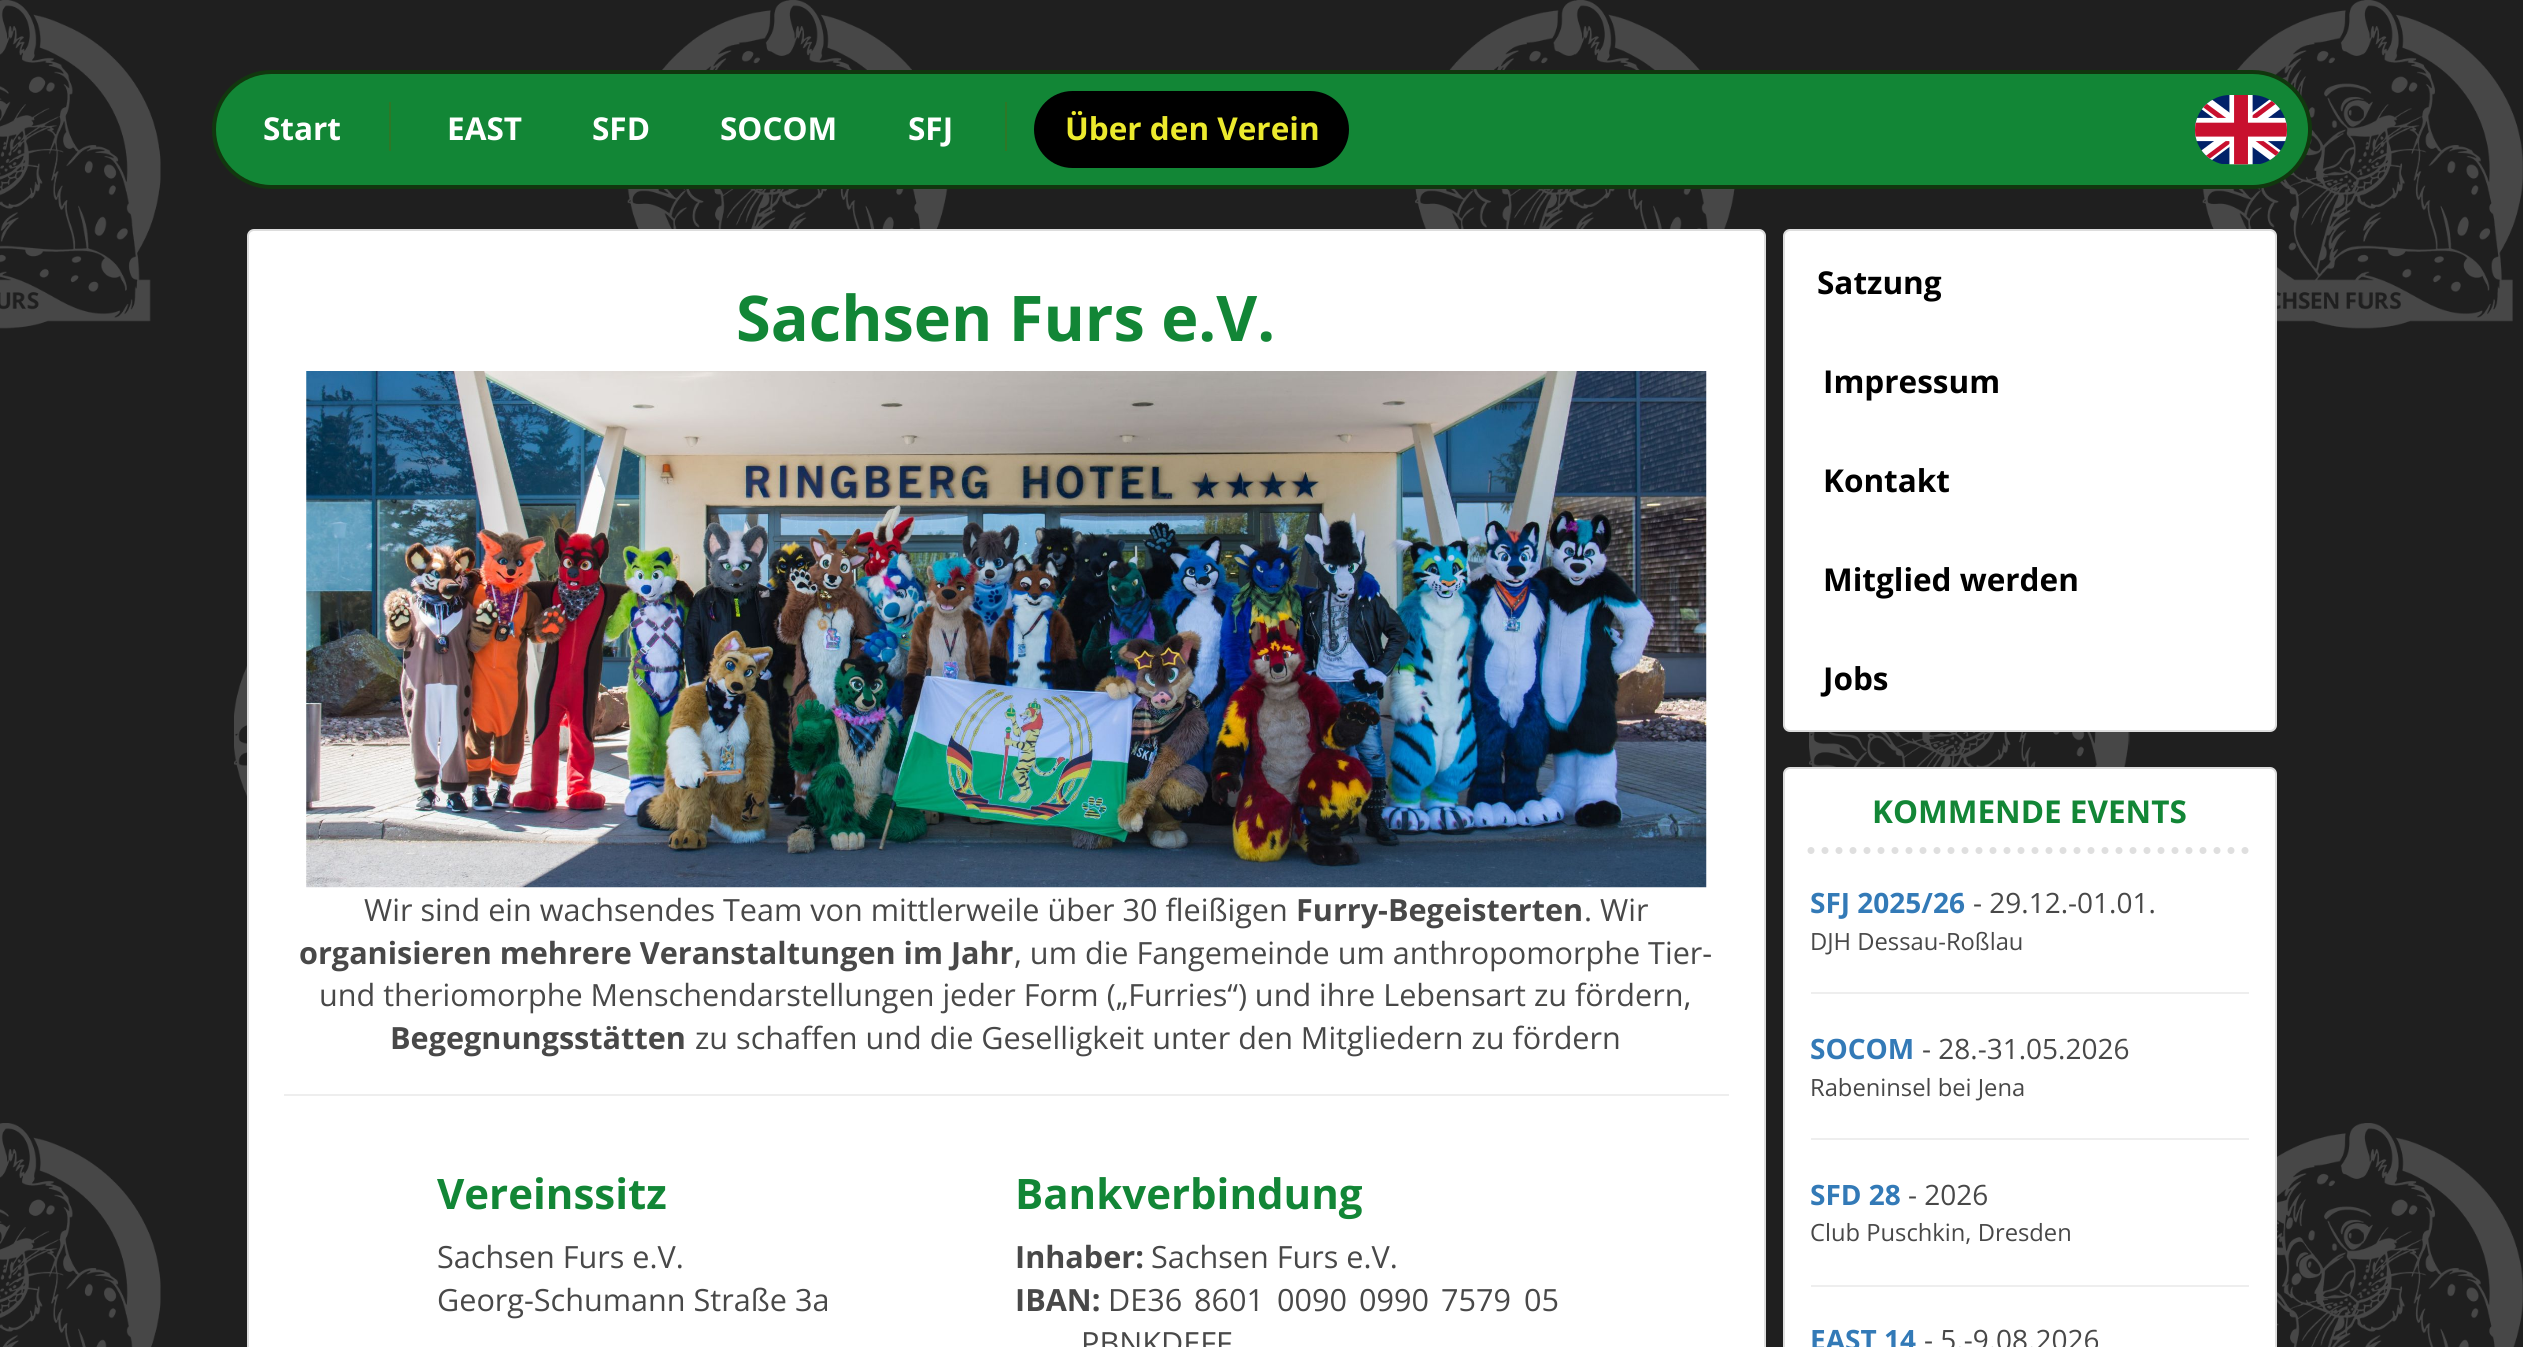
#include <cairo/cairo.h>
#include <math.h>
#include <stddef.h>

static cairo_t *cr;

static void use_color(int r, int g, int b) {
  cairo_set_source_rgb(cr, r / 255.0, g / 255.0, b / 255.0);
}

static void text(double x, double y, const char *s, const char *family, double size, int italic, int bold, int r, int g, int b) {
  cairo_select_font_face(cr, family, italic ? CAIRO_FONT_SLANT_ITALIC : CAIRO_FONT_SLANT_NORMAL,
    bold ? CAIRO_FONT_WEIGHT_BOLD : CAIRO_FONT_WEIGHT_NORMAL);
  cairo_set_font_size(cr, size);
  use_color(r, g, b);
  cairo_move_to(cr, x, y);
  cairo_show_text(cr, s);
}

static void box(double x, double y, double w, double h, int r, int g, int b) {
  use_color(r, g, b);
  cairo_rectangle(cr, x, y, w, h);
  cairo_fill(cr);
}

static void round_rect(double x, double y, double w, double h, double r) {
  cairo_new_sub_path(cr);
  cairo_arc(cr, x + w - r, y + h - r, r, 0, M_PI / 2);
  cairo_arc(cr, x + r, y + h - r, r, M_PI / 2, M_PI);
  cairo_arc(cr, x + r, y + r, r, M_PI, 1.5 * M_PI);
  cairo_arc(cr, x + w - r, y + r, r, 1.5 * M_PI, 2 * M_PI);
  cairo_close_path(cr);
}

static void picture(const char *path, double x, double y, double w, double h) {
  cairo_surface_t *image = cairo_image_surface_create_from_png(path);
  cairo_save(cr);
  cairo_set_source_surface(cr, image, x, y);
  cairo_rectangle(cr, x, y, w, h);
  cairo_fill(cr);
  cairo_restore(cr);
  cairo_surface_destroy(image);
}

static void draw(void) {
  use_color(31, 31, 31);
  cairo_paint(cr);
  picture("img_01.png", 0, 0, 2523, 1347);
  use_color(18, 134, 54);
  round_rect(214, 72, 2096, 115, 57.5);
  cairo_fill_preserve(cr);
  use_color(17, 55, 14);
  cairo_set_line_width(cr, 4);
  cairo_stroke(cr);
  box(389, 102, 2, 49, 47, 119, 39);
  box(1005, 102, 2, 49, 47, 119, 39);
  use_color(0, 0, 0);
  round_rect(1034, 91, 315, 77, 38.5);
  cairo_fill(cr);
  picture("img_02.png", 2195, 95, 92, 70);
  use_color(255, 255, 255);
  round_rect(248, 230, 1517, 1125, 6);
  cairo_fill_preserve(cr);
  use_color(221, 221, 221);
  cairo_set_line_width(cr, 2);
  cairo_stroke(cr);
  picture("img_03.png", 306, 371, 1401, 517);
  box(284, 1094, 1445, 2, 238, 238, 238);
  use_color(255, 255, 255);
  round_rect(1784, 230, 492, 501, 6);
  cairo_fill_preserve(cr);
  use_color(221, 221, 221);
  cairo_stroke(cr);
  use_color(255, 255, 255);
  round_rect(1784, 768, 492, 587, 6);
  cairo_fill_preserve(cr);
  use_color(221, 221, 221);
  cairo_stroke(cr);
  cairo_new_path(cr);
  cairo_move_to(cr, 1811, 850.5);
  cairo_line_to(cr, 2249, 850.5);
  use_color(223, 223, 223);
  cairo_set_line_width(cr, 7);
  cairo_set_line_cap(cr, CAIRO_LINE_CAP_ROUND);
  cairo_set_dash(cr, (double[]){0, 14}, 2, 0);
  cairo_stroke(cr);
  box(1811, 992, 438, 2, 238, 238, 238);
  box(1811, 1138, 438, 2, 238, 238, 238);
  box(1811, 1285, 438, 2, 238, 238, 238);
  text(263, 140, "Start", "Open Sans", 31.5, 0, 1, 255, 255, 255);
  text(447, 140, "EAST", "Open Sans", 31.5, 0, 1, 255, 255, 255);
  text(592, 140, "SFD", "Open Sans", 31.5, 0, 1, 255, 255, 255);
  text(720, 140, "SOCOM", "Open Sans", 31.5, 0, 1, 255, 255, 255);
  text(908, 140, "SFJ", "Open Sans", 31.5, 0, 1, 255, 255, 255);
  text(1065, 140, "Über den Verein", "Open Sans", 31.5, 0, 1, 236, 234, 45);
  text(736, 341, "Sachsen Furs e.V.", "Open Sans", 63, 0, 1, 18, 134, 54);
  text(364, 921, "Wir sind ein wachsendes Team von mittlerweile über 30 fleißigen", "Open Sans", 30.6, 0, 0, 72, 72, 72);
  text(1296, 921, "Furry-Begeisterten", "Open Sans", 30.6, 0, 1, 72, 72, 72);
  text(1584, 921, ". Wir", "Open Sans", 30.6, 0, 0, 72, 72, 72);
  text(299, 964, "organisieren mehrere Veranstaltungen im Jahr", "Open Sans", 30.6, 0, 1, 72, 72, 72);
  text(1014, 964, ", um die Fangemeinde um anthropomorphe Tier-", "Open Sans", 30.6, 0, 0, 72, 72, 72);
  text(319, 1006, "und theriomorphe Menschendarstellungen jeder Form („Furries“) und ihre Lebensart zu fördern,", "Open Sans", 30.6, 0, 0, 72, 72, 72);
  text(390, 1049, "Begegnungsstätten", "Open Sans", 30.6, 0, 1, 72, 72, 72);
  text(695, 1049, "zu schaffen und die Geselligkeit unter den Mitgliedern zu fördern", "Open Sans", 30.6, 0, 0, 72, 72, 72);
  text(437, 1209, "Vereinssitz", "Open Sans", 42, 0, 1, 18, 134, 54);
  text(437, 1268, "Sachsen Furs e.V.", "Open Sans", 30.6, 0, 0, 72, 72, 72);
  text(437, 1311, "Georg-Schumann Straße 3a", "Open Sans", 30.6, 0, 0, 72, 72, 72);
  text(1015, 1209, "Bankverbindung", "Open Sans", 42, 0, 1, 18, 134, 54);
  text(1015, 1268, "Inhaber:", "Open Sans", 30.6, 0, 1, 72, 72, 72);
  text(1151, 1268, "Sachsen Furs e.V.", "Open Sans", 30.6, 0, 0, 72, 72, 72);
  text(1015, 1311, "IBAN:", "Open Sans", 30.6, 0, 1, 72, 72, 72);
  text(1108, 1311, "DE36", "Open Sans", 30.6, 0, 0, 72, 72, 72);
  text(1194, 1311, "8601", "Open Sans", 30.6, 0, 0, 72, 72, 72);
  text(1277, 1311, "0090", "Open Sans", 30.6, 0, 0, 72, 72, 72);
  text(1359, 1311, "0990", "Open Sans", 30.6, 0, 0, 72, 72, 72);
  text(1441, 1311, "7579", "Open Sans", 30.6, 0, 0, 72, 72, 72);
  text(1524, 1311, "05", "Open Sans", 30.6, 0, 0, 72, 72, 72);
  text(1081, 1354, "PBNKDEFF", "Open Sans", 30.6, 0, 0, 72, 72, 72);
  text(1817, 294, "Satzung", "Open Sans", 31.5, 0, 1, 0, 0, 0);
  text(1823, 393, "Impressum", "Open Sans", 31.5, 0, 1, 0, 0, 0);
  text(1823, 492, "Kontakt", "Open Sans", 31.5, 0, 1, 0, 0, 0);
  text(1823, 591, "Mitglied werden", "Open Sans", 31.5, 0, 1, 0, 0, 0);
  text(1823, 690, "Jobs", "Open Sans", 31.5, 0, 1, 0, 0, 0);
  text(1872, 823, "KOMMENDE EVENTS", "Open Sans", 31.5, 0, 1, 18, 134, 54);
  text(1810, 913, "SFJ 2025/26", "Open Sans", 28, 0, 1, 51, 122, 183);
  text(1973, 913, "- 29.12.-01.01.", "Open Sans", 28, 0, 0, 72, 72, 72);
  text(1810, 950, "DJH Dessau-Roßlau", "Open Sans", 23.75, 0, 0, 72, 72, 72);
  text(1810, 1059, "SOCOM", "Open Sans", 28, 0, 1, 51, 122, 183);
  text(1922, 1059, "- 28.-31.05.2026", "Open Sans", 28, 0, 0, 72, 72, 72);
  text(1810, 1096, "Rabeninsel bei Jena", "Open Sans", 23.75, 0, 0, 72, 72, 72);
  text(1810, 1205, "SFD 28", "Open Sans", 28, 0, 1, 51, 122, 183);
  text(1908, 1205, "- 2026", "Open Sans", 28, 0, 0, 72, 72, 72);
  text(1810, 1241, "Club Puschkin, Dresden", "Open Sans", 23.75, 0, 0, 72, 72, 72);
  text(1810, 1350, "EAST 14", "Open Sans", 28, 0, 1, 51, 122, 183);
  text(1924, 1350, "- 5.-9.08.2026", "Open Sans", 28, 0, 0, 72, 72, 72);
}

int main(void) {
  cairo_surface_t *surface = cairo_image_surface_create(CAIRO_FORMAT_RGB24, 2523, 1347);
  cr = cairo_create(surface);
  cairo_font_options_t *options = cairo_font_options_create();
  cairo_font_options_set_hint_metrics(options, CAIRO_HINT_METRICS_OFF);
  cairo_font_options_set_hint_style(options, CAIRO_HINT_STYLE_NONE);
  cairo_set_font_options(cr, options);
  cairo_set_miter_limit(cr, 4);
  draw();
  cairo_surface_write_to_png(surface, "out.png");
  cairo_font_options_destroy(options);
  cairo_destroy(cr);
  cairo_surface_destroy(surface);
  return 0;
}
